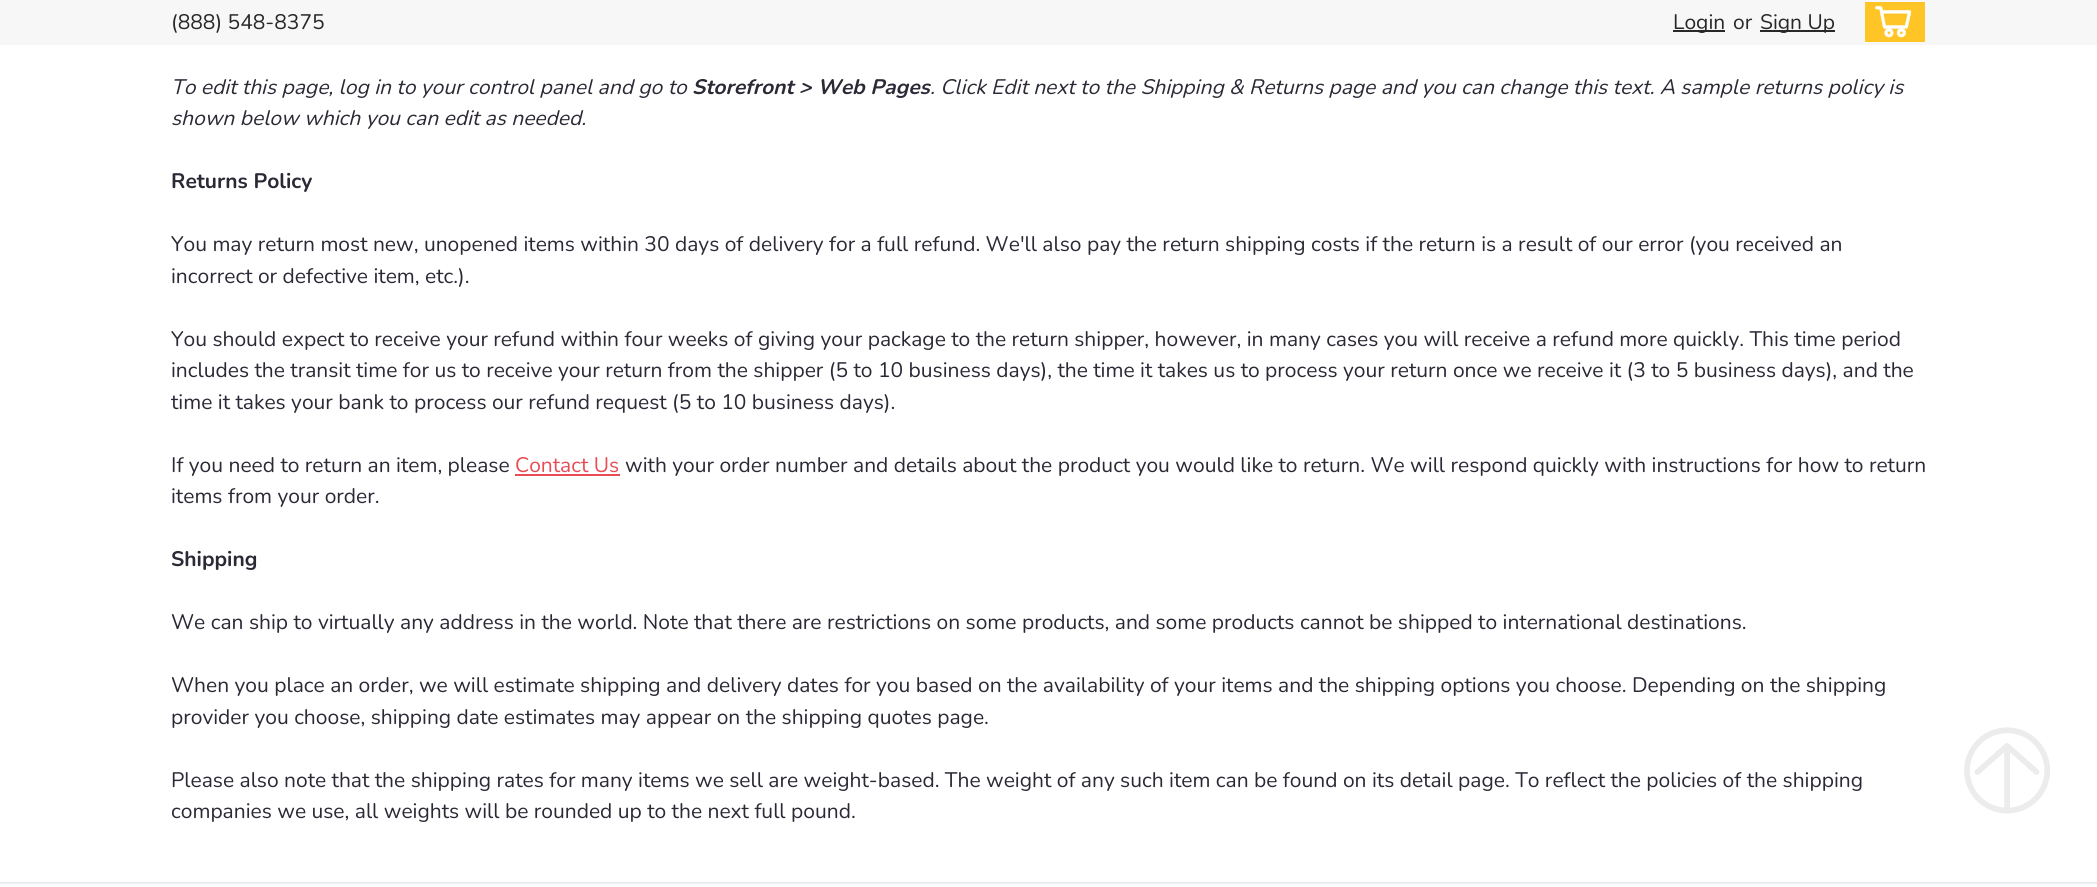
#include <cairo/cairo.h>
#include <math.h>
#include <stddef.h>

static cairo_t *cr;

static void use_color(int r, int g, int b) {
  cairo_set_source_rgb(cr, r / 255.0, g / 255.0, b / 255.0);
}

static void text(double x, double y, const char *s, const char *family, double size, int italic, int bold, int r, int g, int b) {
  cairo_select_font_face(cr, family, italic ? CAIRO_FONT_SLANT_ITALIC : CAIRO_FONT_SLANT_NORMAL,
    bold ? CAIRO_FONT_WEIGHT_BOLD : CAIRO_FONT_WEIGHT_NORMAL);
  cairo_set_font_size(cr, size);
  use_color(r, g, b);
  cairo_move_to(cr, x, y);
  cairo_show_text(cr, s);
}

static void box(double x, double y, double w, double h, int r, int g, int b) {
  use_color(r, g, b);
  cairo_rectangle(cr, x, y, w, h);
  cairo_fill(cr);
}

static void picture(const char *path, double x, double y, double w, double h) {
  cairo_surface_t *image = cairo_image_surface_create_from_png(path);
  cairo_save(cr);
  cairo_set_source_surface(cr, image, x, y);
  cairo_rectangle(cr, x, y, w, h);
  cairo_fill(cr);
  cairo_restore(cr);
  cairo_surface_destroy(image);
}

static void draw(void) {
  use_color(255, 255, 255);
  cairo_paint(cr);
  box(0, 0, 2097, 45, 247, 247, 247);
  box(1673, 30, 52, 2, 40, 40, 40);
  box(1760, 30, 75, 2, 40, 40, 40);
  box(1865, 2, 60, 40, 255, 196, 37);
  picture("img_01.png", 1875, 6, 37, 32);
  box(515, 474, 105, 2, 232, 77, 86);
  picture("img_02.png", 1964, 727, 86, 87);
  box(0, 882, 2097, 2, 236, 236, 236);
  text(171, 29, "(888) 548-8375", "Nunito", 21, 0, 0, 40, 40, 40);
  text(1673, 29, "Login", "Nunito", 21, 0, 0, 40, 40, 40);
  text(1733, 29, "or", "Nunito", 21, 0, 0, 40, 40, 40);
  text(1760, 29, "Sign Up", "Nunito", 21, 0, 0, 40, 40, 40);
  text(171, 94, "To edit this page, log in to your control panel and go to", "Nunito", 21, 1, 0, 43, 41, 53);
  text(692, 94, "Storefront > Web Pages", "Nunito", 21, 1, 1, 43, 41, 53);
  text(930, 94, ". Click Edit next to the Shipping & Returns page and you can change this text. A sample returns policy is", "Nunito", 21, 1, 0, 43, 41, 53);
  text(171, 125, "shown below which you can edit as needed.", "Nunito", 21, 1, 0, 43, 41, 53);
  text(171, 188, "Returns Policy", "Nunito", 21, 0, 1, 43, 41, 53);
  text(171, 251, "You may return most new, unopened items within 30 days of delivery for a full refund. We'll also pay the return shipping costs if the return is a result of our error (you received an", "Nunito", 21, 0, 0, 43, 41, 53);
  text(171, 283, "incorrect or defective item, etc.).", "Nunito", 21, 0, 0, 43, 41, 53);
  text(171, 346, "You should expect to receive your refund within four weeks of giving your package to the return shipper, however, in many cases you will receive a refund more quickly. This time period", "Nunito", 21, 0, 0, 43, 41, 53);
  text(171, 377, "includes the transit time for us to receive your return from the shipper (5 to 10 business days), the time it takes us to process your return once we receive it (3 to 5 business days), and the", "Nunito", 21, 0, 0, 43, 41, 53);
  text(171, 409, "time it takes your bank to process our refund request (5 to 10 business days).", "Nunito", 21, 0, 0, 43, 41, 53);
  text(171, 472, "If you need to return an item, please", "Nunito", 21, 0, 0, 43, 41, 53);
  text(515, 472, "Contact Us", "Nunito", 21, 0, 0, 232, 77, 86);
  text(625, 472, "with your order number and details about the product you would like to return. We will respond quickly with instructions for how to return", "Nunito", 21, 0, 0, 43, 41, 53);
  text(171, 503, "items from your order.", "Nunito", 21, 0, 0, 43, 41, 53);
  text(171, 566, "Shipping", "Nunito", 21, 0, 1, 43, 41, 53);
  text(171, 629, "We can ship to virtually any address in the world. Note that there are restrictions on some products, and some products cannot be shipped to international destinations.", "Nunito", 21, 0, 0, 43, 41, 53);
  text(171, 692, "When you place an order, we will estimate shipping and delivery dates for you based on the availability of your items and the shipping options you choose. Depending on the shipping", "Nunito", 21, 0, 0, 43, 41, 53);
  text(171, 724, "provider you choose, shipping date estimates may appear on the shipping quotes page.", "Nunito", 21, 0, 0, 43, 41, 53);
  text(171, 787, "Please also note that the shipping rates for many items we sell are weight-based. The weight of any such item can be found on its detail page. To reflect the policies of the shipping", "Nunito", 21, 0, 0, 43, 41, 53);
  text(171, 818, "companies we use, all weights will be rounded up to the next full pound.", "Nunito", 21, 0, 0, 43, 41, 53);
}

int main(void) {
  cairo_surface_t *surface = cairo_image_surface_create(CAIRO_FORMAT_RGB24, 2097, 887);
  cr = cairo_create(surface);
  cairo_font_options_t *options = cairo_font_options_create();
  cairo_font_options_set_hint_metrics(options, CAIRO_HINT_METRICS_OFF);
  cairo_font_options_set_hint_style(options, CAIRO_HINT_STYLE_NONE);
  cairo_set_font_options(cr, options);
  cairo_set_miter_limit(cr, 4);
  draw();
  cairo_surface_write_to_png(surface, "out.png");
  cairo_font_options_destroy(options);
  cairo_destroy(cr);
  cairo_surface_destroy(surface);
  return 0;
}
